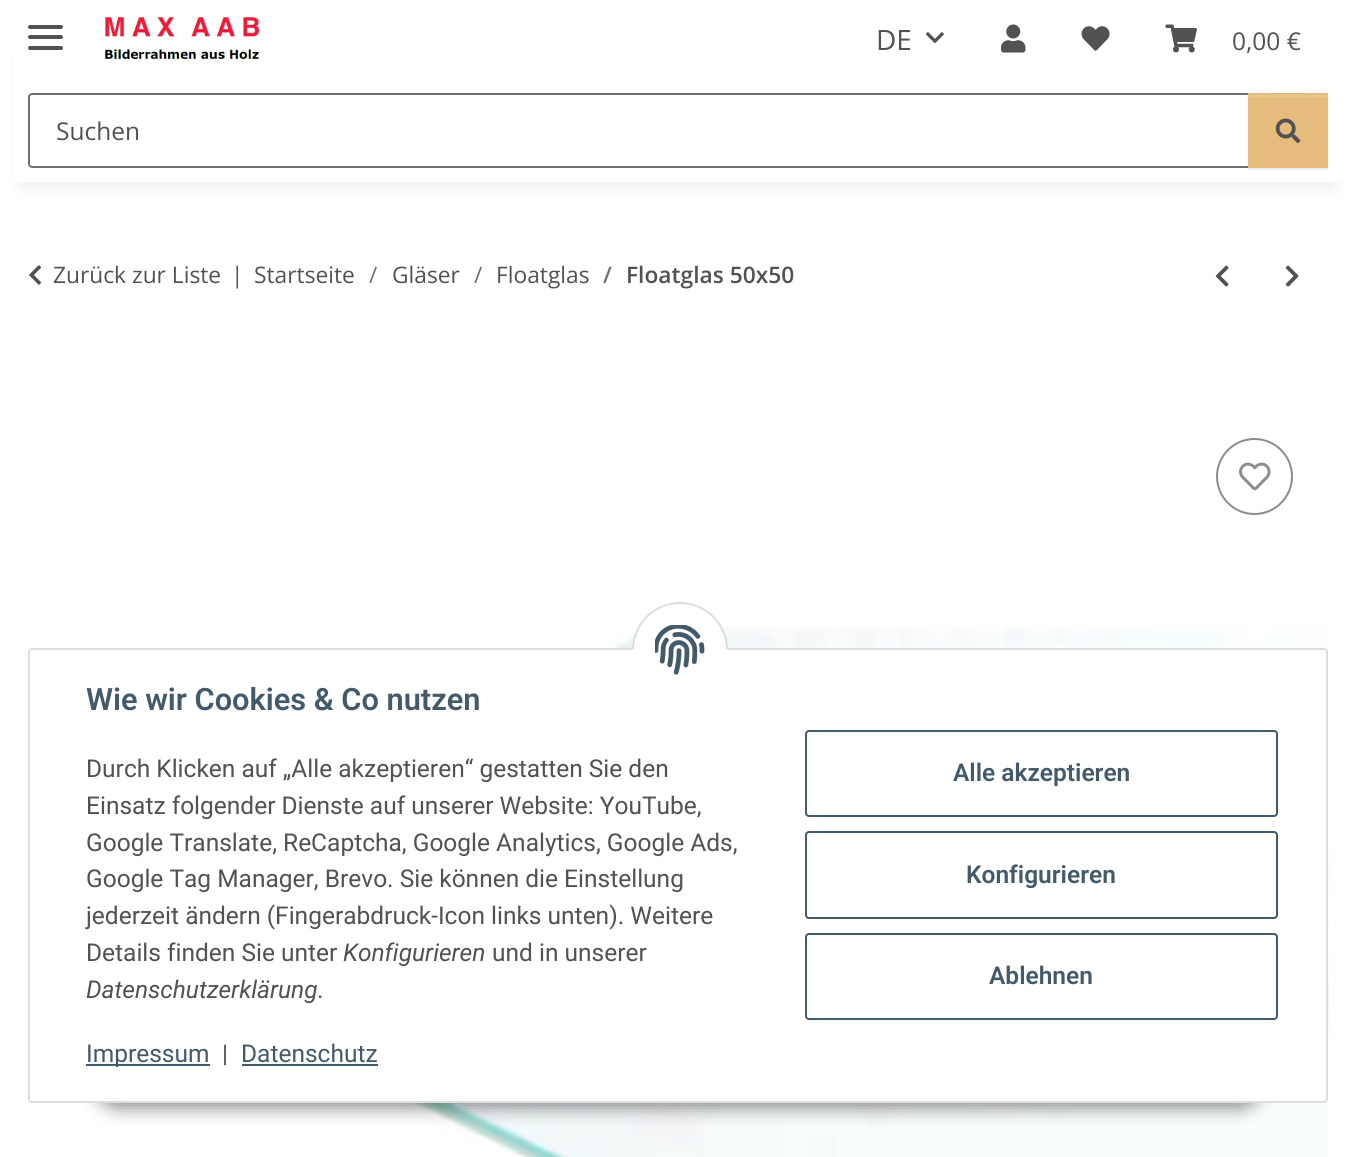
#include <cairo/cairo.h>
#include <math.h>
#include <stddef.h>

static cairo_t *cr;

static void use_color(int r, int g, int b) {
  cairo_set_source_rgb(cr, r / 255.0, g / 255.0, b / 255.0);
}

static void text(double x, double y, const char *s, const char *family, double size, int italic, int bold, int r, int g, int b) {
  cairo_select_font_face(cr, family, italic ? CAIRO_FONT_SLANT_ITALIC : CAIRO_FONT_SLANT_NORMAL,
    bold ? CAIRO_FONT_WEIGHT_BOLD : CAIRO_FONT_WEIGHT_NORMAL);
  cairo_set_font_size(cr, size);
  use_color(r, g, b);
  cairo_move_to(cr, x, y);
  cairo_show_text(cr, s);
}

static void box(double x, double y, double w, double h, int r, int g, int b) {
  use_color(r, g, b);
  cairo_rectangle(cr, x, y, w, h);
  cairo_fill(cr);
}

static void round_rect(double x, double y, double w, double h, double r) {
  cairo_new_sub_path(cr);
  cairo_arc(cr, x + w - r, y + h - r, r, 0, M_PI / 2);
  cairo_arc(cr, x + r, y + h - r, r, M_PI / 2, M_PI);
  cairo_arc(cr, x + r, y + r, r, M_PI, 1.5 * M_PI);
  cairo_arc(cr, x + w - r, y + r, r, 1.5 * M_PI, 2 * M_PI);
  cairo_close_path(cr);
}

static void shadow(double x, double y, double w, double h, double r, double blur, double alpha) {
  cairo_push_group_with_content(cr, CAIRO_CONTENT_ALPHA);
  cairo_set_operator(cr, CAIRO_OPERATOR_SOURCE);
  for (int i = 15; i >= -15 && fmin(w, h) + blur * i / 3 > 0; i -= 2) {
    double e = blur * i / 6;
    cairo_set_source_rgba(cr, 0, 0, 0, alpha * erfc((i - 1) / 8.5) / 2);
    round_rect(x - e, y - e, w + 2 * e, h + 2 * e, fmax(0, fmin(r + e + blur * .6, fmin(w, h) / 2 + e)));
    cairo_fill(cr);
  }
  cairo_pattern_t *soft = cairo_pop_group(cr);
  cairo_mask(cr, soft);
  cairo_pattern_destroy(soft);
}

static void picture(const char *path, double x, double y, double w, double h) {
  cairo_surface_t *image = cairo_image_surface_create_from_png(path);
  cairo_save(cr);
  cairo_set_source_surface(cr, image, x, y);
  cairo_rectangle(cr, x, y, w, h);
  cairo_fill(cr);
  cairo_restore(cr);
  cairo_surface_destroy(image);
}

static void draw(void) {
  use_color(255, 255, 255);
  cairo_paint(cr);
  use_color(0, 0, 0);
  shadow(21, 49, 1314, 140, 0, 8, 0.06);
  box(13, 41, 1330, 141, 255, 255, 255);
  use_color(82, 82, 82);
  round_rect(28, 35, 35, 4, 2);
  cairo_fill(cr);
  round_rect(28, 25, 35, 4, 2);
  cairo_fill(cr);
  round_rect(28, 46, 35, 4, 2);
  cairo_fill(cr);
  picture("img_01.png", 104, 17, 156, 43);
  picture("img_02.png", 926, 32, 18, 11);
  picture("img_03.png", 1001, 24, 25, 29);
  picture("img_04.png", 1081, 26, 29, 25);
  picture("img_05.png", 1165, 24, 32, 29);
  cairo_new_path(cr);
  cairo_move_to(cr, 32, 94);
  cairo_line_to(cr, 1249, 94);
  cairo_line_to(cr, 1249, 167);
  cairo_line_to(cr, 32, 167);
  cairo_curve_to(cr, 30.5, 167, 29, 165.5, 29, 164);
  cairo_line_to(cr, 29, 97);
  cairo_curve_to(cr, 29, 95.5, 30.5, 94, 32, 94);
  cairo_close_path(cr);
  use_color(112, 112, 112);
  cairo_stroke(cr);
  use_color(0, 0, 0);
  shadow(1248, 95, 80, 75, 0, 1, 0.07);
  box(1250, 97, 76, 69, 230, 188, 125);
  box(1250, 95, 77, 2, 234, 198, 145);
  cairo_rectangle(cr, 1249, 94, 78, 73);
  use_color(230, 188, 125);
  cairo_stroke(cr);
  picture("img_06.png", 1275, 118, 26, 25);
  picture("img_07.png", 29, 265, 12, 20);
  picture("img_08.png", 1215, 265, 14, 22);
  picture("img_09.png", 1285, 265, 14, 22);
  cairo_arc(cr, 1254.5, 476.5, 37.5, 0, 2 * M_PI);
  use_color(141, 141, 141);
  cairo_stroke(cr);
  picture("img_10.png", 1239, 462, 32, 29);
  picture("img_11.png", 89, 625, 1240, 532);
  use_color(0, 0, 0);
  shadow(95, 1052, 1167, 56, 28, 9, 0.45);
  use_color(255, 255, 255);
  round_rect(29, 649, 1298, 453, 3);
  cairo_fill_preserve(cr);
  use_color(221, 221, 221);
  cairo_stroke(cr);
  use_color(255, 255, 255);
  cairo_arc(cr, 680, 650, 47, 0, 2 * M_PI);
  cairo_fill_preserve(cr);
  use_color(221, 221, 221);
  cairo_stroke(cr);
  box(632, 649, 96, 49, 255, 255, 255);
  picture("img_12.png", 655, 625, 50, 50);
  box(86, 1064, 124, 2, 67, 90, 107);
  box(242, 1064, 136, 2, 67, 90, 107);
  round_rect(806, 731, 471, 85, 3);
  cairo_stroke(cr);
  round_rect(806, 832, 471, 86, 3);
  cairo_stroke(cr);
  round_rect(806, 934, 471, 85, 3);
  cairo_stroke(cr);
  text(876, 50, "DE", "Open Sans", 28, 0, 0, 82, 82, 82);
  text(1232, 50, "0,00 €", "Open Sans", 24.5, 0, 0, 82, 82, 82);
  text(56, 140, "Suchen", "Open Sans", 24.5, 0, 0, 82, 82, 82);
  text(53, 283, "Zurück zur Liste", "Open Sans", 22.75, 0, 0, 82, 82, 82);
  text(231, 283, "|", "Open Sans", 22.75, 0, 0, 82, 82, 82);
  text(254, 283, "Startseite", "Open Sans", 22.75, 0, 0, 82, 82, 82);
  text(369, 283, "/", "Open Sans", 22.75, 0, 0, 112, 112, 112);
  text(392, 283, "Gläser", "Open Sans", 22.75, 0, 0, 82, 82, 82);
  text(474, 283, "/", "Open Sans", 22.75, 0, 0, 112, 112, 112);
  text(496, 283, "Floatglas", "Open Sans", 22.75, 0, 0, 82, 82, 82);
  text(603, 283, "/", "Open Sans SemiBold", 22.75, 0, 0, 112, 112, 112);
  text(626, 283, "Floatglas 50x50", "Open Sans SemiBold", 22.75, 0, 0, 82, 82, 82);
  text(86, 710, "Wie wir Cookies & Co nutzen", "Roboto SemiBold", 30.75, 0, 0, 67, 90, 107);
  text(86, 777, "Durch Klicken auf „Alle akzeptieren“ gestatten Sie den", "Roboto", 24.5, 0, 0, 82, 82, 82);
  text(86, 814, "Einsatz folgender Dienste auf unserer Website: YouTube,", "Roboto", 24.5, 0, 0, 82, 82, 82);
  text(86, 851, "Google Translate, ReCaptcha, Google Analytics, Google Ads,", "Roboto", 24.5, 0, 0, 82, 82, 82);
  text(86, 887, "Google Tag Manager, Brevo. Sie können die Einstellung", "Roboto", 24.5, 0, 0, 82, 82, 82);
  text(86, 924, "jederzeit ändern (Fingerabdruck-Icon links unten). Weitere", "Roboto", 24.5, 0, 0, 82, 82, 82);
  text(86, 961, "Details finden Sie unter", "Roboto", 24.5, 0, 0, 82, 82, 82);
  text(343, 961, "Konfigurieren", "Roboto", 24.5, 1, 0, 82, 82, 82);
  text(492, 961, "und in unserer", "Roboto", 24.5, 0, 0, 82, 82, 82);
  text(86, 998, "Datenschutzerklärung", "Roboto", 24.5, 1, 0, 82, 82, 82);
  text(317, 998, ".", "Roboto", 24.5, 0, 0, 82, 82, 82);
  text(86, 1062, "Impressum", "Roboto", 24.5, 0, 0, 67, 90, 107);
  text(222, 1062, "|", "Roboto", 24.5, 0, 0, 82, 82, 82);
  text(241, 1062, "Datenschutz", "Roboto", 24.5, 0, 0, 67, 90, 107);
  text(953, 781, "Alle akzeptieren", "Roboto SemiBold", 24.5, 0, 0, 67, 90, 107);
  text(966, 883, "Konfigurieren", "Roboto SemiBold", 24.5, 0, 0, 67, 90, 107);
  text(989, 984, "Ablehnen", "Roboto SemiBold", 24.5, 0, 0, 67, 90, 107);
}

int main(void) {
  cairo_surface_t *surface = cairo_image_surface_create(CAIRO_FORMAT_RGB24, 1355, 1157);
  cr = cairo_create(surface);
  cairo_font_options_t *options = cairo_font_options_create();
  cairo_font_options_set_hint_metrics(options, CAIRO_HINT_METRICS_OFF);
  cairo_font_options_set_hint_style(options, CAIRO_HINT_STYLE_NONE);
  cairo_set_font_options(cr, options);
  cairo_set_miter_limit(cr, 4);
  draw();
  cairo_surface_write_to_png(surface, "out.png");
  cairo_font_options_destroy(options);
  cairo_destroy(cr);
  cairo_surface_destroy(surface);
  return 0;
}
